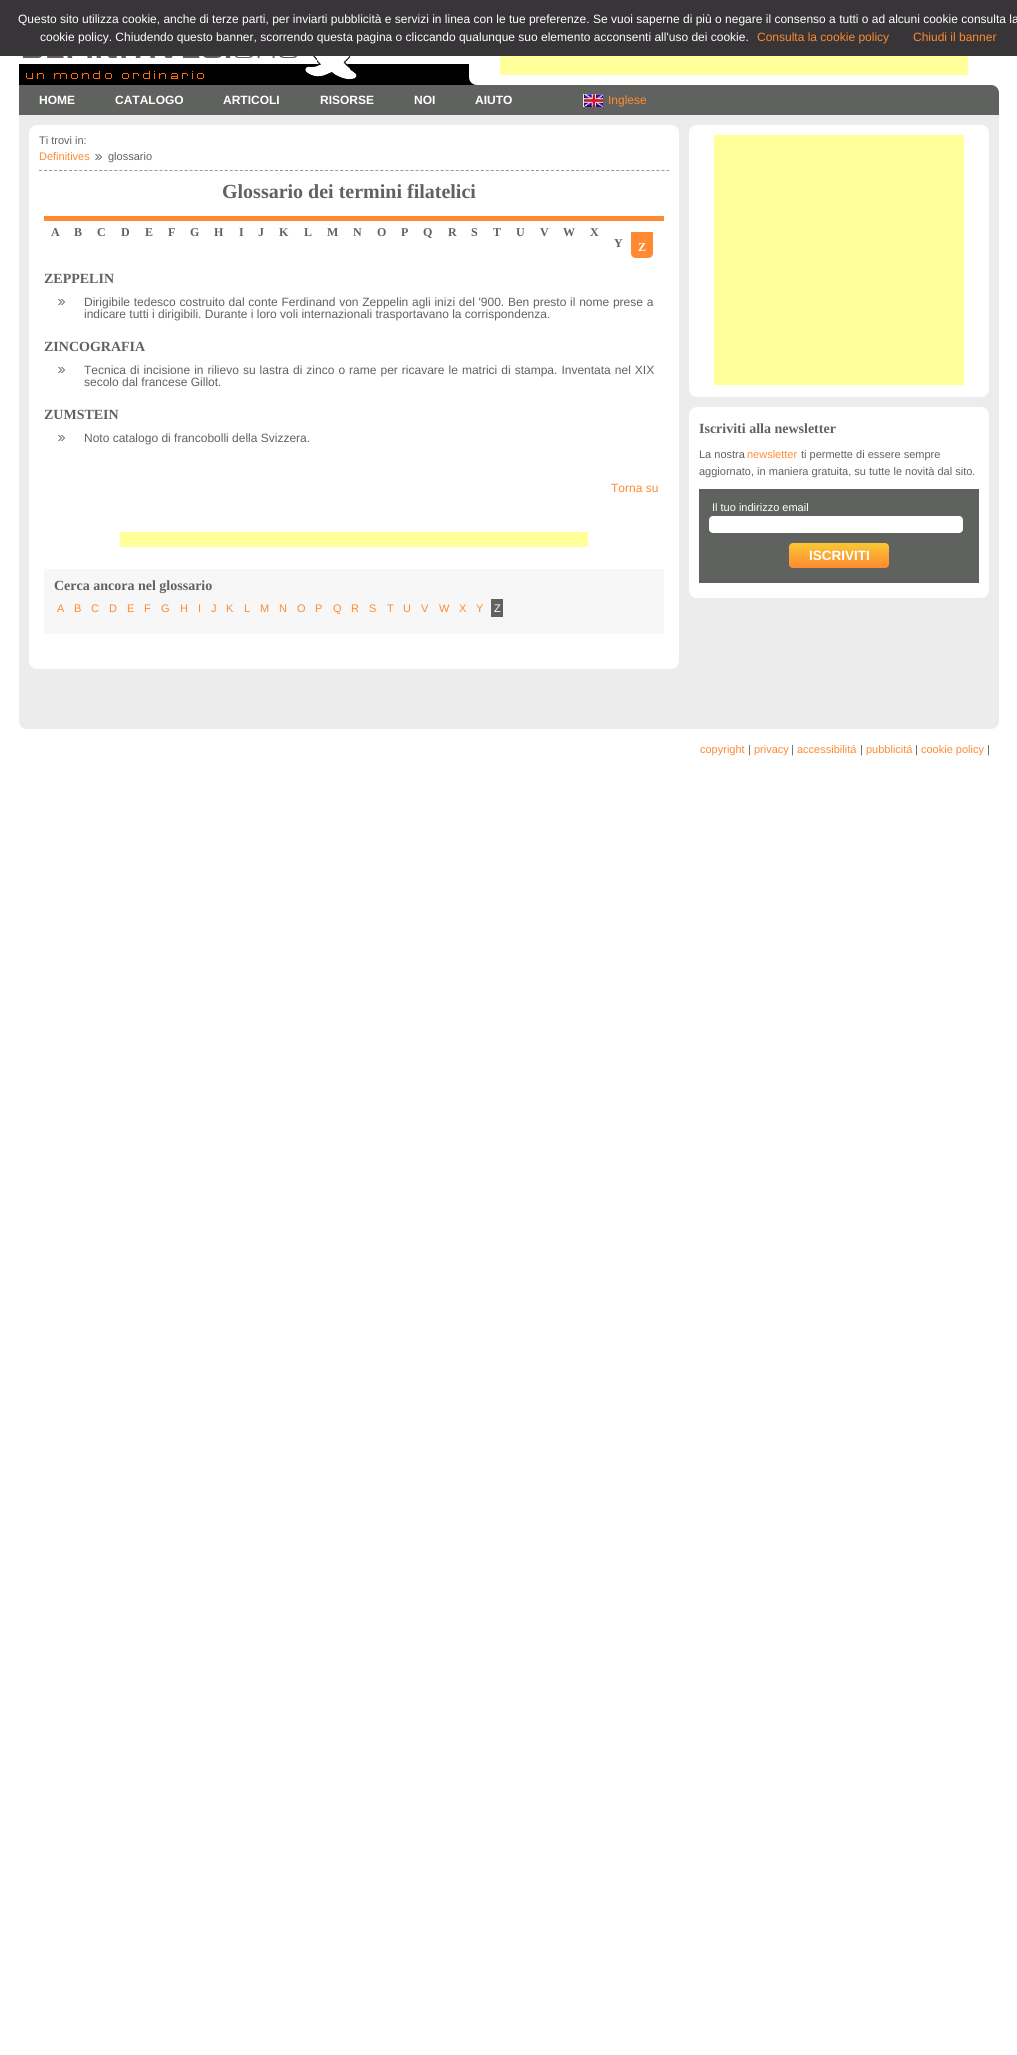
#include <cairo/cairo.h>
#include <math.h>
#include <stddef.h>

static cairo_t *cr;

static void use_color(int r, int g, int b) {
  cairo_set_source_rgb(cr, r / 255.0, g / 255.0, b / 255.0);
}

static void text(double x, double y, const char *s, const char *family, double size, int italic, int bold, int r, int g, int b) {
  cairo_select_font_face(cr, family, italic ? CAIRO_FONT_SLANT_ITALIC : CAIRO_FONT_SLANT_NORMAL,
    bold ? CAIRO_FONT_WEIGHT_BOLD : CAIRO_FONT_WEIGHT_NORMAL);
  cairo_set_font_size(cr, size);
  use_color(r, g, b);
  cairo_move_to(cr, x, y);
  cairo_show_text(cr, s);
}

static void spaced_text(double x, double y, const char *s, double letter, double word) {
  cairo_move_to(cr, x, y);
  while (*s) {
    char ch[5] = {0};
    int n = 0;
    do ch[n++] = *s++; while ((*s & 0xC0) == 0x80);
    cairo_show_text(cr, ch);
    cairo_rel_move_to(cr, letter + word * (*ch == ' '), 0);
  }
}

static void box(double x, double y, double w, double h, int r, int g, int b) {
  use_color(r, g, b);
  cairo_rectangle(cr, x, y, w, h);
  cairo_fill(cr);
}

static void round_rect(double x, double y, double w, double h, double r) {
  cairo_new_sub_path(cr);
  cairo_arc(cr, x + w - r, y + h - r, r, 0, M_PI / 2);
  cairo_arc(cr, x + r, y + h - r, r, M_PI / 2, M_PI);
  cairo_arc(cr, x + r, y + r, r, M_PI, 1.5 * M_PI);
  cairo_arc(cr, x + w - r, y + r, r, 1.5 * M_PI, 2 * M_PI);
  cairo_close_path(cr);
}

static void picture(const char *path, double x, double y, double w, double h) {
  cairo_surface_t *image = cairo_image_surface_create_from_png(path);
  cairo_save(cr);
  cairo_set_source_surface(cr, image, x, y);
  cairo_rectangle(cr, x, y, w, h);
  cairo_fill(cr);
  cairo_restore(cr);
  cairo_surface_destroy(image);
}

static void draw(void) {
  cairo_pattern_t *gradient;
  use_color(255, 255, 255);
  cairo_paint(cr);
  box(469, 77, 8, 8, 0, 0, 0);
  use_color(255, 255, 255);
  cairo_new_path(cr);
  cairo_move_to(cr, 469, 15);
  cairo_line_to(cr, 999, 15);
  cairo_line_to(cr, 999, 85);
  cairo_line_to(cr, 477, 85);
  cairo_curve_to(cr, 472.5, 85, 469, 81.5, 469, 77);
  cairo_close_path(cr);
  cairo_fill(cr);
  box(0, 0, 1017, 56, 55, 53, 55);
  picture("img_01.png", 19, 56, 450, 29);
  box(500, 56, 468, 19, 255, 255, 153);
  use_color(96, 98, 95);
  cairo_new_path(cr);
  cairo_move_to(cr, 19, 85);
  cairo_line_to(cr, 991, 85);
  cairo_curve_to(cr, 995.5, 85, 999, 88.5, 999, 93);
  cairo_line_to(cr, 999, 115);
  cairo_line_to(cr, 19, 115);
  cairo_close_path(cr);
  cairo_fill(cr);
  picture("img_02.png", 583, 94, 20, 13);
  use_color(236, 236, 236);
  cairo_new_path(cr);
  cairo_move_to(cr, 19, 115);
  cairo_line_to(cr, 999, 115);
  cairo_line_to(cr, 999, 721);
  cairo_curve_to(cr, 999, 725.5, 995.5, 729, 991, 729);
  cairo_line_to(cr, 27, 729);
  cairo_curve_to(cr, 22.5, 729, 19, 725.5, 19, 721);
  cairo_close_path(cr);
  cairo_fill(cr);
  use_color(255, 255, 255);
  round_rect(29, 125, 650, 544, 8);
  cairo_fill(cr);
  cairo_new_path(cr);
  cairo_move_to(cr, 39, 170.5);
  cairo_line_to(cr, 669, 170.5);
  use_color(153, 153, 153);
  cairo_set_line_width(cr, 1);
  cairo_set_dash(cr, (double[]){3, 2.02}, 2, 0);
  cairo_stroke(cr);
  picture("img_03.png", 95, 154, 7, 6);
  box(44, 216, 620, 5, 255, 138, 49);
  cairo_new_path(cr);
  cairo_move_to(cr, 631, 232);
  cairo_line_to(cr, 653, 232);
  cairo_line_to(cr, 653, 253);
  cairo_curve_to(cr, 653, 256, 651, 258, 648, 258);
  cairo_line_to(cr, 636, 258);
  cairo_curve_to(cr, 633, 258, 631, 256, 631, 253);
  cairo_close_path(cr);
  cairo_fill(cr);
  picture("img_03.png", 58, 299, 7, 6);
  picture("img_03.png", 58, 367, 7, 6);
  picture("img_03.png", 58, 435, 7, 6);
  box(120, 532, 468, 15, 255, 255, 153);
  box(44, 569, 620, 65, 246, 247, 246);
  box(491, 599, 12, 18, 96, 98, 95);
  use_color(255, 255, 255);
  round_rect(689, 125, 300, 272, 8);
  cairo_fill(cr);
  box(714, 135, 250, 250, 255, 255, 153);
  use_color(255, 255, 255);
  round_rect(689, 407, 300, 191, 8);
  cairo_fill(cr);
  box(699, 489, 280, 94, 96, 98, 95);
  use_color(255, 255, 255);
  round_rect(709, 516, 254, 17, 4);
  cairo_fill(cr);
  gradient = cairo_pattern_create_linear(789, 543, 789, 568);
  cairo_pattern_add_color_stop_rgba(gradient, 0, 0.976, 0.784, 0.2, 1);
  cairo_pattern_add_color_stop_rgba(gradient, 1, 1, 0.541, 0.192, 1);
  cairo_set_source(cr, gradient);
  cairo_pattern_destroy(gradient);
  round_rect(789, 543, 100, 25, 4);
  cairo_fill(cr);
  text(18, 23, "Questo sito utilizza cookie, anche di terze parti, per inviarti pubblicità e servizi in linea con le tue preferenze. Se vuoi saperne di più o negare il consenso a tutti o ad alcuni cookie consulta la", "Liberation Sans", 12, 0, 0, 255, 255, 255);
  text(40, 41, "cookie policy. Chiudendo questo banner, scorrendo questa pagina o cliccando qualunque suo elemento acconsenti all'uso dei cookie.", "Liberation Sans", 12, 0, 0, 255, 255, 255);
  text(757, 41, "Consulta la cookie policy", "Liberation Sans", 12, 0, 0, 255, 138, 49);
  text(913, 41, "Chiudi il banner", "Liberation Sans", 12, 0, 0, 255, 138, 49);
  text(39, 104, "HOME", "Liberation Sans", 12, 0, 1, 255, 255, 255);
  text(115, 104, "CATALOGO", "Liberation Sans", 12, 0, 1, 255, 255, 255);
  text(223, 104, "ARTICOLI", "Liberation Sans", 12, 0, 1, 255, 255, 255);
  text(320, 104, "RISORSE", "Liberation Sans", 12, 0, 1, 255, 255, 255);
  text(414, 104, "NOI", "Liberation Sans", 12, 0, 1, 255, 255, 255);
  text(475, 104, "AIUTO", "Liberation Sans", 12, 0, 1, 255, 255, 255);
  text(608, 104, "Inglese", "Liberation Sans", 12, 0, 0, 255, 138, 49);
  text(39, 144, "Ti trovi in:", "Liberation Sans", 11, 0, 0, 96, 98, 95);
  text(39, 160, "Definitives", "Liberation Sans", 11, 0, 0, 255, 138, 49);
  text(108, 160, "glossario", "Liberation Sans", 11, 0, 0, 96, 98, 95);
  text(222, 198, "Glossario dei termini filatelici", "Liberation Serif", 20, 0, 1, 96, 98, 95);
  text(51, 236, "A", "Liberation Serif", 12, 0, 1, 96, 98, 95);
  text(74, 236, "B", "Liberation Serif", 12, 0, 1, 96, 98, 95);
  text(97, 236, "C", "Liberation Serif", 12, 0, 1, 96, 98, 95);
  text(121, 236, "D", "Liberation Serif", 12, 0, 1, 96, 98, 95);
  text(145, 236, "E", "Liberation Serif", 12, 0, 1, 96, 98, 95);
  text(168, 236, "F", "Liberation Serif", 12, 0, 1, 96, 98, 95);
  text(190, 236, "G", "Liberation Serif", 12, 0, 1, 96, 98, 95);
  text(214, 236, "H", "Liberation Serif", 12, 0, 1, 96, 98, 95);
  text(239, 236, "I", "Liberation Serif", 12, 0, 1, 96, 98, 95);
  text(258, 236, "J", "Liberation Serif", 12, 0, 1, 96, 98, 95);
  text(279, 236, "K", "Liberation Serif", 12, 0, 1, 96, 98, 95);
  text(304, 236, "L", "Liberation Serif", 12, 0, 1, 96, 98, 95);
  text(327, 236, "M", "Liberation Serif", 12, 0, 1, 96, 98, 95);
  text(353, 236, "N", "Liberation Serif", 12, 0, 1, 96, 98, 95);
  text(377, 236, "O", "Liberation Serif", 12, 0, 1, 96, 98, 95);
  text(401, 236, "P", "Liberation Serif", 12, 0, 1, 96, 98, 95);
  text(423, 236, "Q", "Liberation Serif", 12, 0, 1, 96, 98, 95);
  text(448, 236, "R", "Liberation Serif", 12, 0, 1, 96, 98, 95);
  text(471, 236, "S", "Liberation Serif", 12, 0, 1, 96, 98, 95);
  text(493, 236, "T", "Liberation Serif", 12, 0, 1, 96, 98, 95);
  text(516, 236, "U", "Liberation Serif", 12, 0, 1, 96, 98, 95);
  text(540, 236, "V", "Liberation Serif", 12, 0, 1, 96, 98, 95);
  text(563, 236, "W", "Liberation Serif", 12, 0, 1, 96, 98, 95);
  text(590, 236, "X", "Liberation Serif", 12, 0, 1, 96, 98, 95);
  text(614, 247, "Y", "Liberation Serif", 12, 0, 1, 96, 98, 95);
  text(638, 251, "Z", "Liberation Serif", 12, 0, 1, 255, 255, 255);
  text(44, 283, "ZEPPELIN", "Liberation Serif", 14, 0, 1, 96, 98, 95);
  cairo_select_font_face(cr, "Liberation Sans", CAIRO_FONT_SLANT_NORMAL, CAIRO_FONT_WEIGHT_NORMAL);
  cairo_set_font_size(cr, 12);
  spaced_text(84, 306, "Dirigibile tedesco costruito dal conte Ferdinand von Zeppelin agli inizi del '900. Ben presto il nome prese a", 0, 0.4);
  text(84, 318, "indicare tutti i dirigibili. Durante i loro voli internazionali trasportavano la corrispondenza.", "Liberation Sans", 12, 0, 0, 96, 98, 95);
  text(44, 351, "ZINCOGRAFIA", "Liberation Serif", 14, 0, 1, 96, 98, 95);
  cairo_select_font_face(cr, "Liberation Sans", CAIRO_FONT_SLANT_NORMAL, CAIRO_FONT_WEIGHT_NORMAL);
  cairo_set_font_size(cr, 12);
  spaced_text(84, 374, "Tecnica di incisione in rilievo su lastra di zinco o rame per ricavare le matrici di stampa. Inventata nel XIX", 0, 0.7);
  text(84, 386, "secolo dal francese Gillot.", "Liberation Sans", 12, 0, 0, 96, 98, 95);
  text(44, 419, "ZUMSTEIN", "Liberation Serif", 14, 0, 1, 96, 98, 95);
  text(84, 442, "Noto catalogo di francobolli della Svizzera.", "Liberation Sans", 12, 0, 0, 96, 98, 95);
  text(611, 492, "Torna su", "Liberation Sans", 12, 0, 0, 255, 138, 49);
  text(54, 590, "Cerca ancora nel glossario", "Liberation Serif", 14, 0, 1, 96, 98, 95);
  text(57, 612, "A", "Liberation Sans", 11, 0, 0, 255, 138, 49);
  text(74, 612, "B", "Liberation Sans", 11, 0, 0, 255, 138, 49);
  text(91, 612, "C", "Liberation Sans", 11, 0, 0, 255, 138, 49);
  text(109, 612, "D", "Liberation Sans", 11, 0, 0, 255, 138, 49);
  text(127, 612, "E", "Liberation Sans", 11, 0, 0, 255, 138, 49);
  text(144, 612, "F", "Liberation Sans", 11, 0, 0, 255, 138, 49);
  text(161, 612, "G", "Liberation Sans", 11, 0, 0, 255, 138, 49);
  text(180, 612, "H", "Liberation Sans", 11, 0, 0, 255, 138, 49);
  text(198, 612, "I", "Liberation Sans", 11, 0, 0, 255, 138, 49);
  text(211, 612, "J", "Liberation Sans", 11, 0, 0, 255, 138, 49);
  text(226, 612, "K", "Liberation Sans", 11, 0, 0, 255, 138, 49);
  text(244, 612, "L", "Liberation Sans", 11, 0, 0, 255, 138, 49);
  text(260, 612, "M", "Liberation Sans", 11, 0, 0, 255, 138, 49);
  text(279, 612, "N", "Liberation Sans", 11, 0, 0, 255, 138, 49);
  text(297, 612, "O", "Liberation Sans", 11, 0, 0, 255, 138, 49);
  text(315, 612, "P", "Liberation Sans", 11, 0, 0, 255, 138, 49);
  text(333, 612, "Q", "Liberation Sans", 11, 0, 0, 255, 138, 49);
  text(351, 612, "R", "Liberation Sans", 11, 0, 0, 255, 138, 49);
  text(369, 612, "S", "Liberation Sans", 11, 0, 0, 255, 138, 49);
  text(387, 612, "T", "Liberation Sans", 11, 0, 0, 255, 138, 49);
  text(403, 612, "U", "Liberation Sans", 11, 0, 0, 255, 138, 49);
  text(421, 612, "V", "Liberation Sans", 11, 0, 0, 255, 138, 49);
  text(439, 612, "W", "Liberation Sans", 11, 0, 0, 255, 138, 49);
  text(459, 612, "X", "Liberation Sans", 11, 0, 0, 255, 138, 49);
  text(476, 612, "Y", "Liberation Sans", 11, 0, 0, 255, 138, 49);
  text(494, 612, "Z", "Liberation Sans", 11, 0, 0, 255, 255, 255);
  text(699, 433, "Iscriviti alla newsletter", "Liberation Serif", 14, 0, 1, 96, 98, 95);
  text(699, 458, "La nostra", "Liberation Sans", 11, 0, 0, 96, 98, 95);
  text(747, 458, "newsletter", "Liberation Sans", 11, 0, 0, 255, 138, 49);
  text(801, 458, "ti permette di essere sempre", "Liberation Sans", 11, 0, 0, 96, 98, 95);
  text(699, 475, "aggiornato, in maniera gratuita, su tutte le novità dal sito.", "Liberation Sans", 11, 0, 0, 96, 98, 95);
  text(712, 511, "Il tuo indirizzo email", "Liberation Sans", 11, 0, 0, 255, 255, 255);
  text(809, 560, "ISCRIVITI", "Liberation Sans", 13.5, 0, 1, 255, 255, 255);
  text(700, 753, "copyright", "Liberation Sans", 11, 0, 0, 255, 138, 49);
  text(748, 753, "|", "Liberation Sans", 11, 0, 0, 96, 98, 95);
  text(754, 753, "privacy", "Liberation Sans", 11, 0, 0, 255, 138, 49);
  text(791, 753, "|", "Liberation Sans", 11, 0, 0, 96, 98, 95);
  text(797, 753, "accessibilitá", "Liberation Sans", 11, 0, 0, 255, 138, 49);
  text(860, 753, "|", "Liberation Sans", 11, 0, 0, 96, 98, 95);
  text(866, 753, "pubblicitá", "Liberation Sans", 11, 0, 0, 255, 138, 49);
  text(915, 753, "|", "Liberation Sans", 11, 0, 0, 96, 98, 95);
  text(921, 753, "cookie policy", "Liberation Sans", 11, 0, 0, 255, 138, 49);
  text(987, 753, "|", "Liberation Sans", 11, 0, 0, 96, 98, 95);
}

int main(void) {
  cairo_surface_t *surface = cairo_image_surface_create(CAIRO_FORMAT_RGB24, 1017, 2055);
  cr = cairo_create(surface);
  cairo_font_options_t *options = cairo_font_options_create();
  cairo_font_options_set_hint_metrics(options, CAIRO_HINT_METRICS_OFF);
  cairo_font_options_set_hint_style(options, CAIRO_HINT_STYLE_NONE);
  cairo_set_font_options(cr, options);
  cairo_set_miter_limit(cr, 4);
  draw();
  cairo_surface_write_to_png(surface, "out.png");
  cairo_font_options_destroy(options);
  cairo_destroy(cr);
  cairo_surface_destroy(surface);
  return 0;
}
